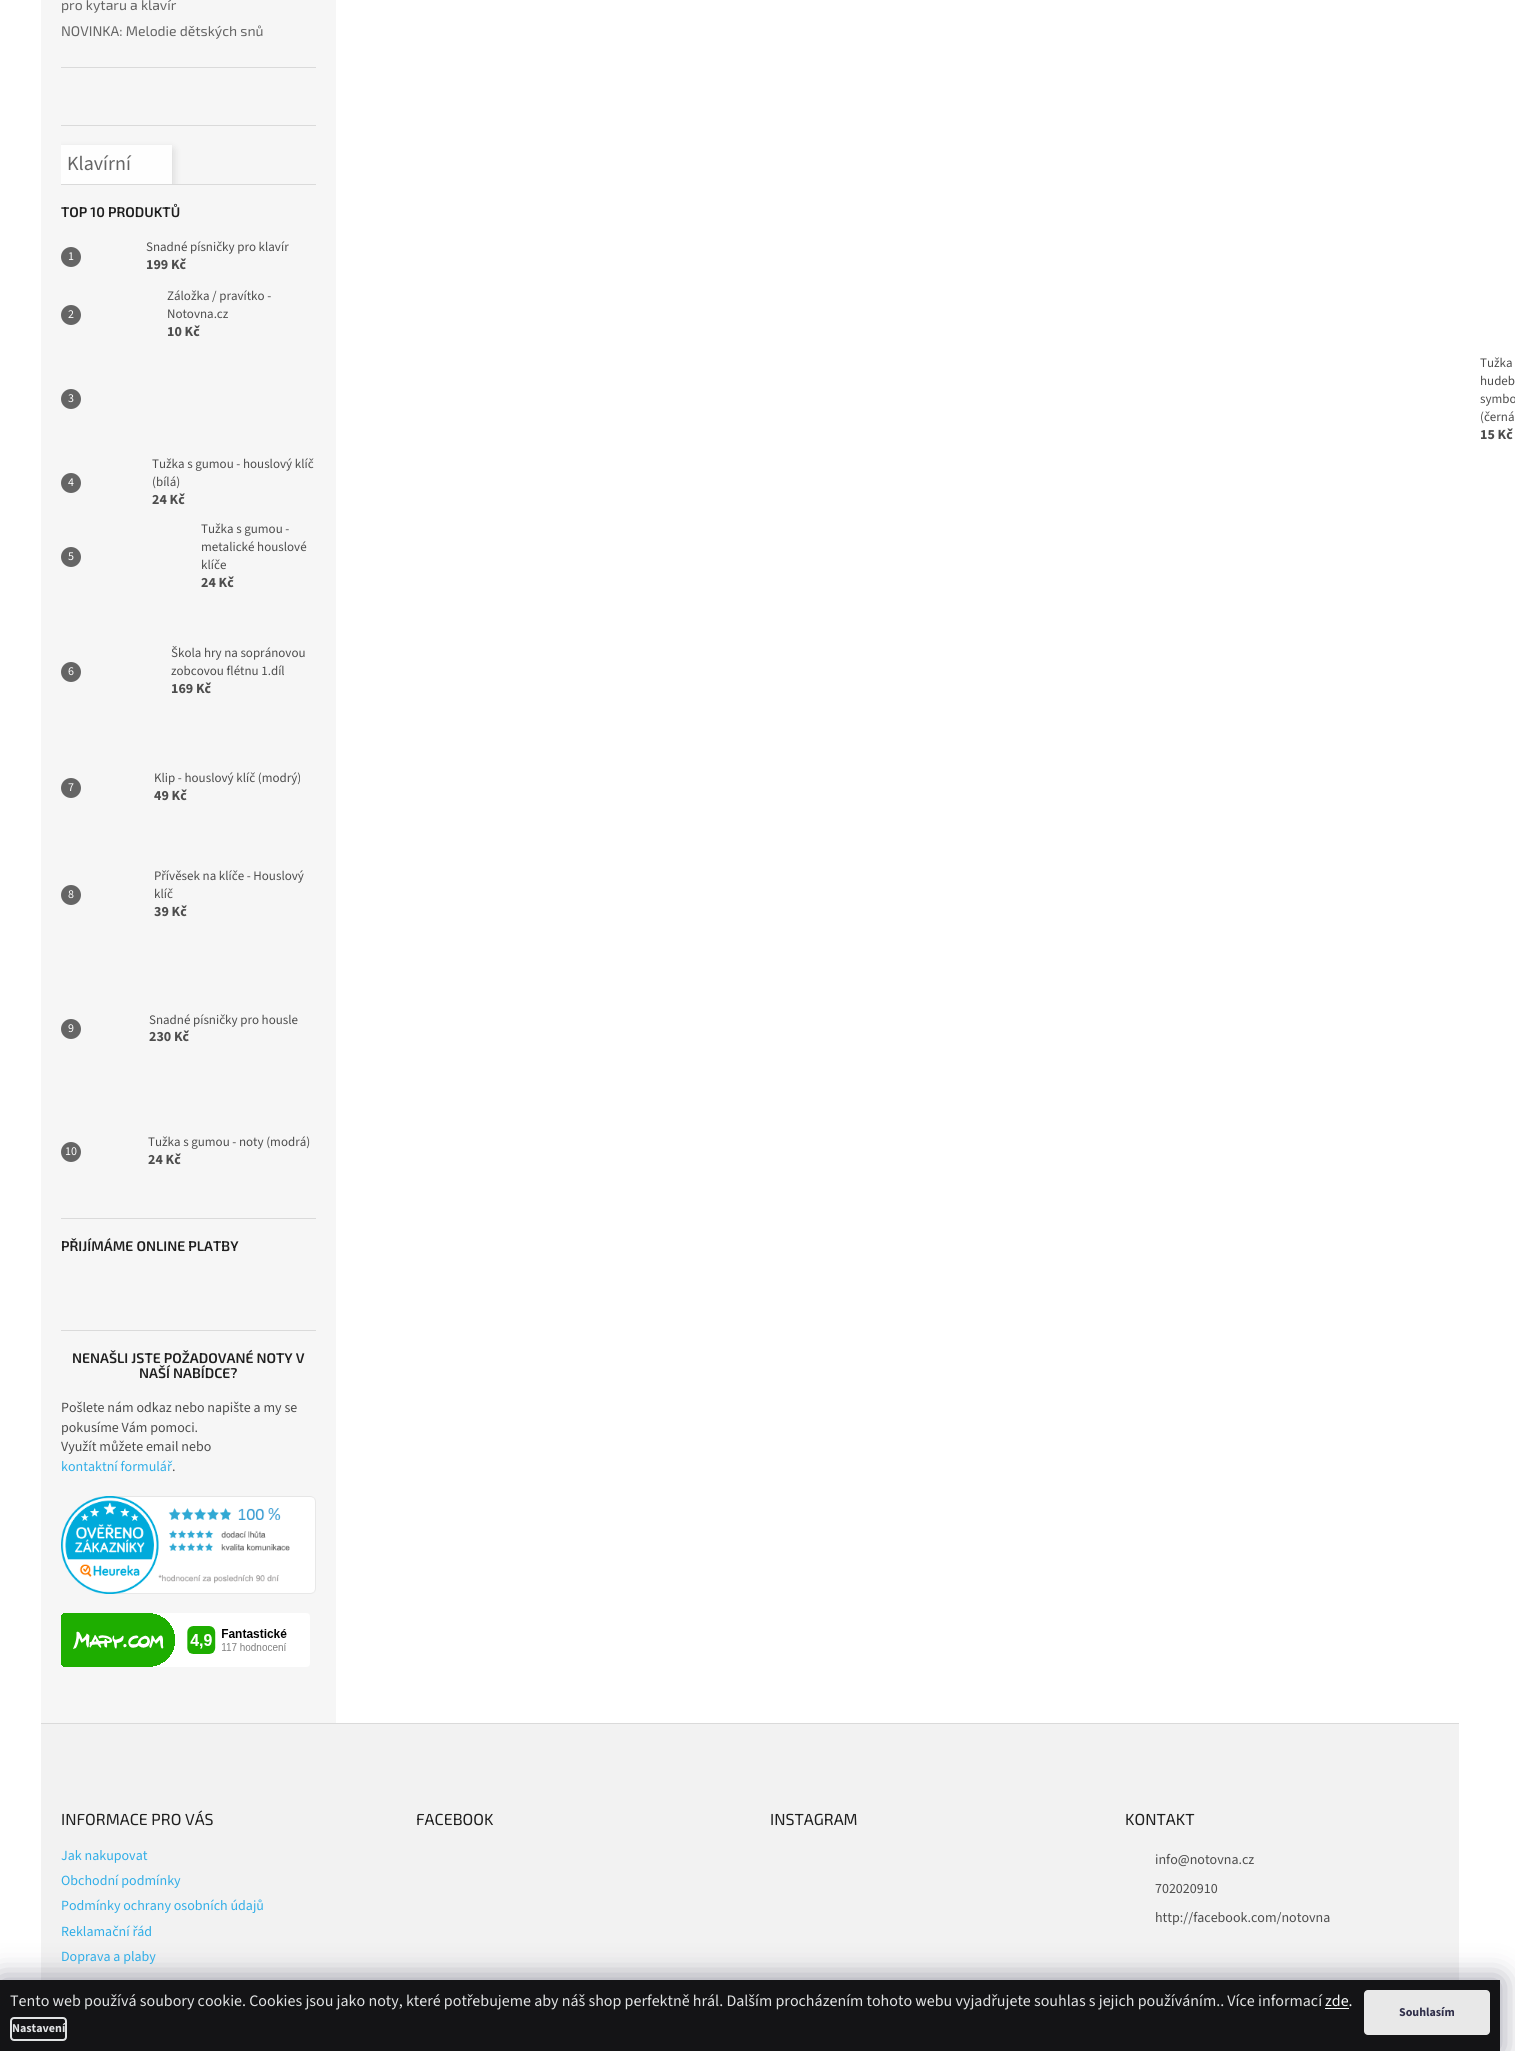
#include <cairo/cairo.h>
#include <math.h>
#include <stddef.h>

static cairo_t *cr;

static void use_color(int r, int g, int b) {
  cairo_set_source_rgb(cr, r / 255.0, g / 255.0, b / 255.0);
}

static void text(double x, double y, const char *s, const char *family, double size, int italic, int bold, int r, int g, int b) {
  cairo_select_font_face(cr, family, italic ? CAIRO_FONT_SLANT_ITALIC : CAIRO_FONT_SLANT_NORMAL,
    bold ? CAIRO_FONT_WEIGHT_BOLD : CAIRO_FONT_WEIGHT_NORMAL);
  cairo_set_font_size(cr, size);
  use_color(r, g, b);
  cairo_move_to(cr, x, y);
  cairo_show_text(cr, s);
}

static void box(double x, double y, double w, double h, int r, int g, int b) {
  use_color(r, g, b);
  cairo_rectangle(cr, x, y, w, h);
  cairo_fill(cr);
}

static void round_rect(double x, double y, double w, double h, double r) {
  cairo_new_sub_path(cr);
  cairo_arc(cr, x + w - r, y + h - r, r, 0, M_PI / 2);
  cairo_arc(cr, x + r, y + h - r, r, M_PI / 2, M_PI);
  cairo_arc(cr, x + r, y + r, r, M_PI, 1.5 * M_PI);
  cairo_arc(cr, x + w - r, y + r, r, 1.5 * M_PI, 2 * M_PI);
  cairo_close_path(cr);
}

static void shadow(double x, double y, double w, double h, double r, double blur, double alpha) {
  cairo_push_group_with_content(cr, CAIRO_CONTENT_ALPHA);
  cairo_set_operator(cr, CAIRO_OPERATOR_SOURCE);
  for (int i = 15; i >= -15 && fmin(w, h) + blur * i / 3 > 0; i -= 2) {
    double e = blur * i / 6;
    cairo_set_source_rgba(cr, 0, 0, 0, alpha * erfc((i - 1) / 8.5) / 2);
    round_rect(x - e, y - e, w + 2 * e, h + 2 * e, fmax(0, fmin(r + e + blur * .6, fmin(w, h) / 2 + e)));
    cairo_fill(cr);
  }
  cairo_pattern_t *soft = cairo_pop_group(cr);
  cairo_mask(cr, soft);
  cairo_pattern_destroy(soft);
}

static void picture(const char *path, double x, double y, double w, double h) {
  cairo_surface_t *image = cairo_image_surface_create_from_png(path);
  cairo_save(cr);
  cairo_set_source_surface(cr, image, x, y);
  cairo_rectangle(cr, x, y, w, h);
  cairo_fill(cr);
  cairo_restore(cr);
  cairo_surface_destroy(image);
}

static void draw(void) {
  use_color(255, 255, 255);
  cairo_paint(cr);
  box(41, 0, 295, 1723, 246, 246, 246);
  box(61, 67, 255, 1, 218, 218, 218);
  box(61, 125, 255, 1, 218, 218, 218);
  box(61, 184, 255, 1, 218, 218, 218);
  cairo_save(cr);
  cairo_rectangle(cr, 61, 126, 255, 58);
  cairo_clip(cr);
  use_color(0, 0, 0);
  shadow(61, 150, 111, 68, 0, 5, 0.16);
  cairo_restore(cr);
  box(61, 145, 111, 39, 254, 254, 254);
  box(61, 1218, 255, 1, 218, 218, 218);
  use_color(101, 101, 101);
  cairo_arc(cr, 71, 257, 10, 0, 2 * M_PI);
  cairo_fill(cr);
  cairo_arc(cr, 71, 315, 10, 0, 2 * M_PI);
  cairo_fill(cr);
  cairo_arc(cr, 71, 399, 10, 0, 2 * M_PI);
  cairo_fill(cr);
  cairo_arc(cr, 71, 483, 10, 0, 2 * M_PI);
  cairo_fill(cr);
  cairo_arc(cr, 71, 557, 10, 0, 2 * M_PI);
  cairo_fill(cr);
  cairo_arc(cr, 71, 672, 10, 0, 2 * M_PI);
  cairo_fill(cr);
  cairo_arc(cr, 71, 788, 10, 0, 2 * M_PI);
  cairo_fill(cr);
  cairo_arc(cr, 71, 895, 10, 0, 2 * M_PI);
  cairo_fill(cr);
  cairo_arc(cr, 71, 1029, 10, 0, 2 * M_PI);
  cairo_fill(cr);
  cairo_arc(cr, 71, 1152, 10, 0, 2 * M_PI);
  cairo_fill(cr);
  box(61, 1330, 255, 1, 218, 218, 218);
  picture("img_01.png", 61, 1496, 255, 98);
  picture("img_02.png", 61, 1613, 249, 54);
  box(41, 1724, 1418, 321, 242, 242, 242);
  box(41, 1723, 1418, 1, 218, 218, 218);
  cairo_save(cr);
  cairo_set_fill_rule(cr, CAIRO_FILL_RULE_EVEN_ODD);
  cairo_new_path(cr);
  cairo_move_to(cr, 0, 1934);
  cairo_line_to(cr, 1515, 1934);
  cairo_line_to(cr, 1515, 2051);
  cairo_line_to(cr, 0, 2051);
  cairo_close_path(cr);
  cairo_move_to(cr, 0, 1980);
  cairo_line_to(cr, 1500, 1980);
  cairo_line_to(cr, 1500, 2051);
  cairo_line_to(cr, 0, 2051);
  cairo_close_path(cr);
  cairo_clip(cr);
  use_color(27, 25, 57);
  shadow(0, 1980, 1500, 71, 0, 15, 0.45);
  cairo_restore(cr);
  cairo_set_source_rgba(cr, 0.102, 0.098, 0.216, 0.9);
  cairo_rectangle(cr, 0, 1980, 1500, 71);
  cairo_fill(cr);
  cairo_set_source_rgba(cr, 0.067, 0.067, 0.067, 0.9);
  cairo_rectangle(cr, 0, 1980, 1500, 71);
  cairo_fill(cr);
  box(1325, 2008, 24, 1, 247, 249, 250);
  round_rect(11, 2018, 55, 22, 3);
  use_color(225, 227, 228);
  cairo_stroke(cr);
  use_color(232, 232, 232);
  round_rect(1364, 1990, 126, 45, 4);
  cairo_fill(cr);
  text(61, 10, "pro kytaru a klavír", "Exo 2", 14, 0, 0, 101, 101, 101);
  text(61, 36, "NOVINKA: Melodie dětských snů", "Exo 2", 14, 0, 0, 101, 101, 101);
  text(67, 170, "Klavírní", "Source Sans 3", 20, 0, 0, 101, 101, 101);
  text(61, 217, "TOP 10 PRODUKTŮ", "Exo 2 SemiBold", 14, 0, 0, 31, 31, 31);
  text(68, 260, "1", "Source Sans 3", 12, 0, 0, 255, 255, 255);
  text(146, 251, "Snadné písničky pro klavír", "Source Sans 3", 13, 0, 0, 77, 77, 77);
  text(146, 269, "199 Kč", "Source Sans 3", 14, 0, 1, 77, 77, 77);
  text(68, 318, "2", "Source Sans 3", 12, 0, 0, 255, 255, 255);
  text(167, 300, "Záložka / pravítko -", "Source Sans 3", 13, 0, 0, 77, 77, 77);
  text(167, 318, "Notovna.cz", "Source Sans 3", 13, 0, 0, 77, 77, 77);
  text(167, 336, "10 Kč", "Source Sans 3", 14, 0, 1, 77, 77, 77);
  text(68, 402, "3", "Source Sans 3", 12, 0, 0, 255, 255, 255);
  text(1480, 367, "Tužka", "Source Sans 3", 13, 0, 0, 77, 77, 77);
  text(1480, 385, "hudeb", "Source Sans 3", 13, 0, 0, 77, 77, 77);
  text(1480, 403, "symbo", "Source Sans 3", 13, 0, 0, 77, 77, 77);
  text(1480, 421, "(černá", "Source Sans 3", 13, 0, 0, 77, 77, 77);
  text(1480, 439, "15 Kč", "Source Sans 3", 14, 0, 1, 77, 77, 77);
  text(68, 486, "4", "Source Sans 3", 12, 0, 0, 255, 255, 255);
  text(152, 468, "Tužka s gumou - houslový klíč", "Source Sans 3", 13, 0, 0, 77, 77, 77);
  text(152, 486, "(bílá)", "Source Sans 3", 13, 0, 0, 77, 77, 77);
  text(152, 504, "24 Kč", "Source Sans 3", 14, 0, 1, 77, 77, 77);
  text(68, 560, "5", "Source Sans 3", 12, 0, 0, 255, 255, 255);
  text(201, 533, "Tužka s gumou -", "Source Sans 3", 13, 0, 0, 77, 77, 77);
  text(201, 551, "metalické houslové", "Source Sans 3", 13, 0, 0, 77, 77, 77);
  text(201, 569, "klíče", "Source Sans 3", 13, 0, 0, 77, 77, 77);
  text(201, 587, "24 Kč", "Source Sans 3", 14, 0, 1, 77, 77, 77);
  text(68, 675, "6", "Source Sans 3", 12, 0, 0, 255, 255, 255);
  text(171, 657, "Škola hry na sopránovou", "Source Sans 3", 13, 0, 0, 77, 77, 77);
  text(171, 675, "zobcovou flétnu 1.díl", "Source Sans 3", 13, 0, 0, 77, 77, 77);
  text(171, 693, "169 Kč", "Source Sans 3", 14, 0, 1, 77, 77, 77);
  text(68, 791, "7", "Source Sans 3", 12, 0, 0, 255, 255, 255);
  text(154, 782, "Klip - houslový klíč (modrý)", "Source Sans 3", 13, 0, 0, 77, 77, 77);
  text(154, 800, "49 Kč", "Source Sans 3", 14, 0, 1, 77, 77, 77);
  text(68, 898, "8", "Source Sans 3", 12, 0, 0, 255, 255, 255);
  text(154, 880, "Přívěsek na klíče - Houslový", "Source Sans 3", 13, 0, 0, 77, 77, 77);
  text(154, 898, "klíč", "Source Sans 3", 13, 0, 0, 77, 77, 77);
  text(154, 916, "39 Kč", "Source Sans 3", 14, 0, 1, 77, 77, 77);
  text(68, 1032, "9", "Source Sans 3", 12, 0, 0, 255, 255, 255);
  text(149, 1024, "Snadné písničky pro housle", "Source Sans 3", 13, 0, 0, 77, 77, 77);
  text(149, 1041, "230 Kč", "Source Sans 3", 14, 0, 1, 77, 77, 77);
  text(65, 1155, "10", "Source Sans 3", 12, 0, 0, 255, 255, 255);
  text(148, 1146, "Tužka s gumou - noty (modrá)", "Source Sans 3", 13, 0, 0, 77, 77, 77);
  text(148, 1164, "24 Kč", "Source Sans 3", 14, 0, 1, 77, 77, 77);
  text(61, 1251, "PŘIJÍMÁME ONLINE PLATBY", "Exo 2 SemiBold", 14, 0, 0, 31, 31, 31);
  text(72, 1363, "NENAŠLI JSTE POŽADOVANÉ NOTY V", "Exo 2 SemiBold", 14, 0, 0, 31, 31, 31);
  text(139, 1378, "NAŠÍ NABÍDCE?", "Exo 2 SemiBold", 14, 0, 0, 31, 31, 31);
  text(61, 1412, "Pošlete nám odkaz nebo napište a my se", "Source Sans 3", 14, 0, 0, 77, 77, 77);
  text(61, 1432, "pokusíme Vám pomoci.", "Source Sans 3", 14, 0, 0, 77, 77, 77);
  text(61, 1451, "Využít můžete email nebo", "Source Sans 3", 14, 0, 0, 77, 77, 77);
  text(172, 1471, ".", "Source Sans 3", 14, 0, 0, 77, 77, 77);
  text(61, 1471, "kontaktní formulář", "Source Sans 3", 14, 0, 0, 49, 174, 231);
  text(61, 1825, "INFORMACE PRO VÁS", "Exo 2", 16, 0, 0, 31, 31, 31);
  text(61, 1860, "Jak nakupovat", "Source Sans 3", 14, 0, 0, 49, 174, 231);
  text(61, 1885, "Obchodní podmínky", "Source Sans 3", 14, 0, 0, 49, 174, 231);
  text(61, 1910, "Podmínky ochrany osobních údajů", "Source Sans 3", 14, 0, 0, 49, 174, 231);
  text(61, 1936, "Reklamační řád", "Source Sans 3", 14, 0, 0, 49, 174, 231);
  text(61, 1961, "Doprava a plaby", "Source Sans 3", 14, 0, 0, 49, 174, 231);
  text(416, 1825, "FACEBOOK", "Exo 2", 16, 0, 0, 31, 31, 31);
  text(770, 1825, "INSTAGRAM", "Exo 2", 16, 0, 0, 31, 31, 31);
  text(1125, 1825, "KONTAKT", "Exo 2", 16, 0, 0, 31, 31, 31);
  text(1155, 1864, "info@notovna.cz", "Source Sans 3", 14, 0, 0, 77, 77, 77);
  text(1155, 1893, "702020910", "Source Sans 3", 14, 0, 0, 77, 77, 77);
  text(1155, 1922, "http://facebook.com/notovna", "Source Sans 3", 14, 0, 0, 77, 77, 77);
  text(10, 2006, "Tento web používá soubory cookie. Cookies jsou jako noty, které potřebujeme aby náš shop perfektně hrál. Dalším procházením tohoto webu vyjadřujete souhlas s jejich používáním.. Více informací", "Source Sans 3", 16, 0, 0, 225, 227, 228);
  text(1325, 2006, "zde.", "Source Sans 3", 16, 0, 0, 247, 249, 250);
  text(12, 2032, "Nastavení", "Source Sans 3", 12, 0, 1, 225, 227, 228);
  text(1399, 2016, "Souhlasím", "Source Sans 3", 12, 0, 1, 48, 47, 74);
}

int main(void) {
  cairo_surface_t *surface = cairo_image_surface_create(CAIRO_FORMAT_RGB24, 1515, 2051);
  cr = cairo_create(surface);
  cairo_font_options_t *options = cairo_font_options_create();
  cairo_font_options_set_hint_metrics(options, CAIRO_HINT_METRICS_OFF);
  cairo_font_options_set_hint_style(options, CAIRO_HINT_STYLE_NONE);
  cairo_set_font_options(cr, options);
  cairo_set_miter_limit(cr, 4);
  draw();
  cairo_surface_write_to_png(surface, "out.png");
  cairo_font_options_destroy(options);
  cairo_destroy(cr);
  cairo_surface_destroy(surface);
  return 0;
}
